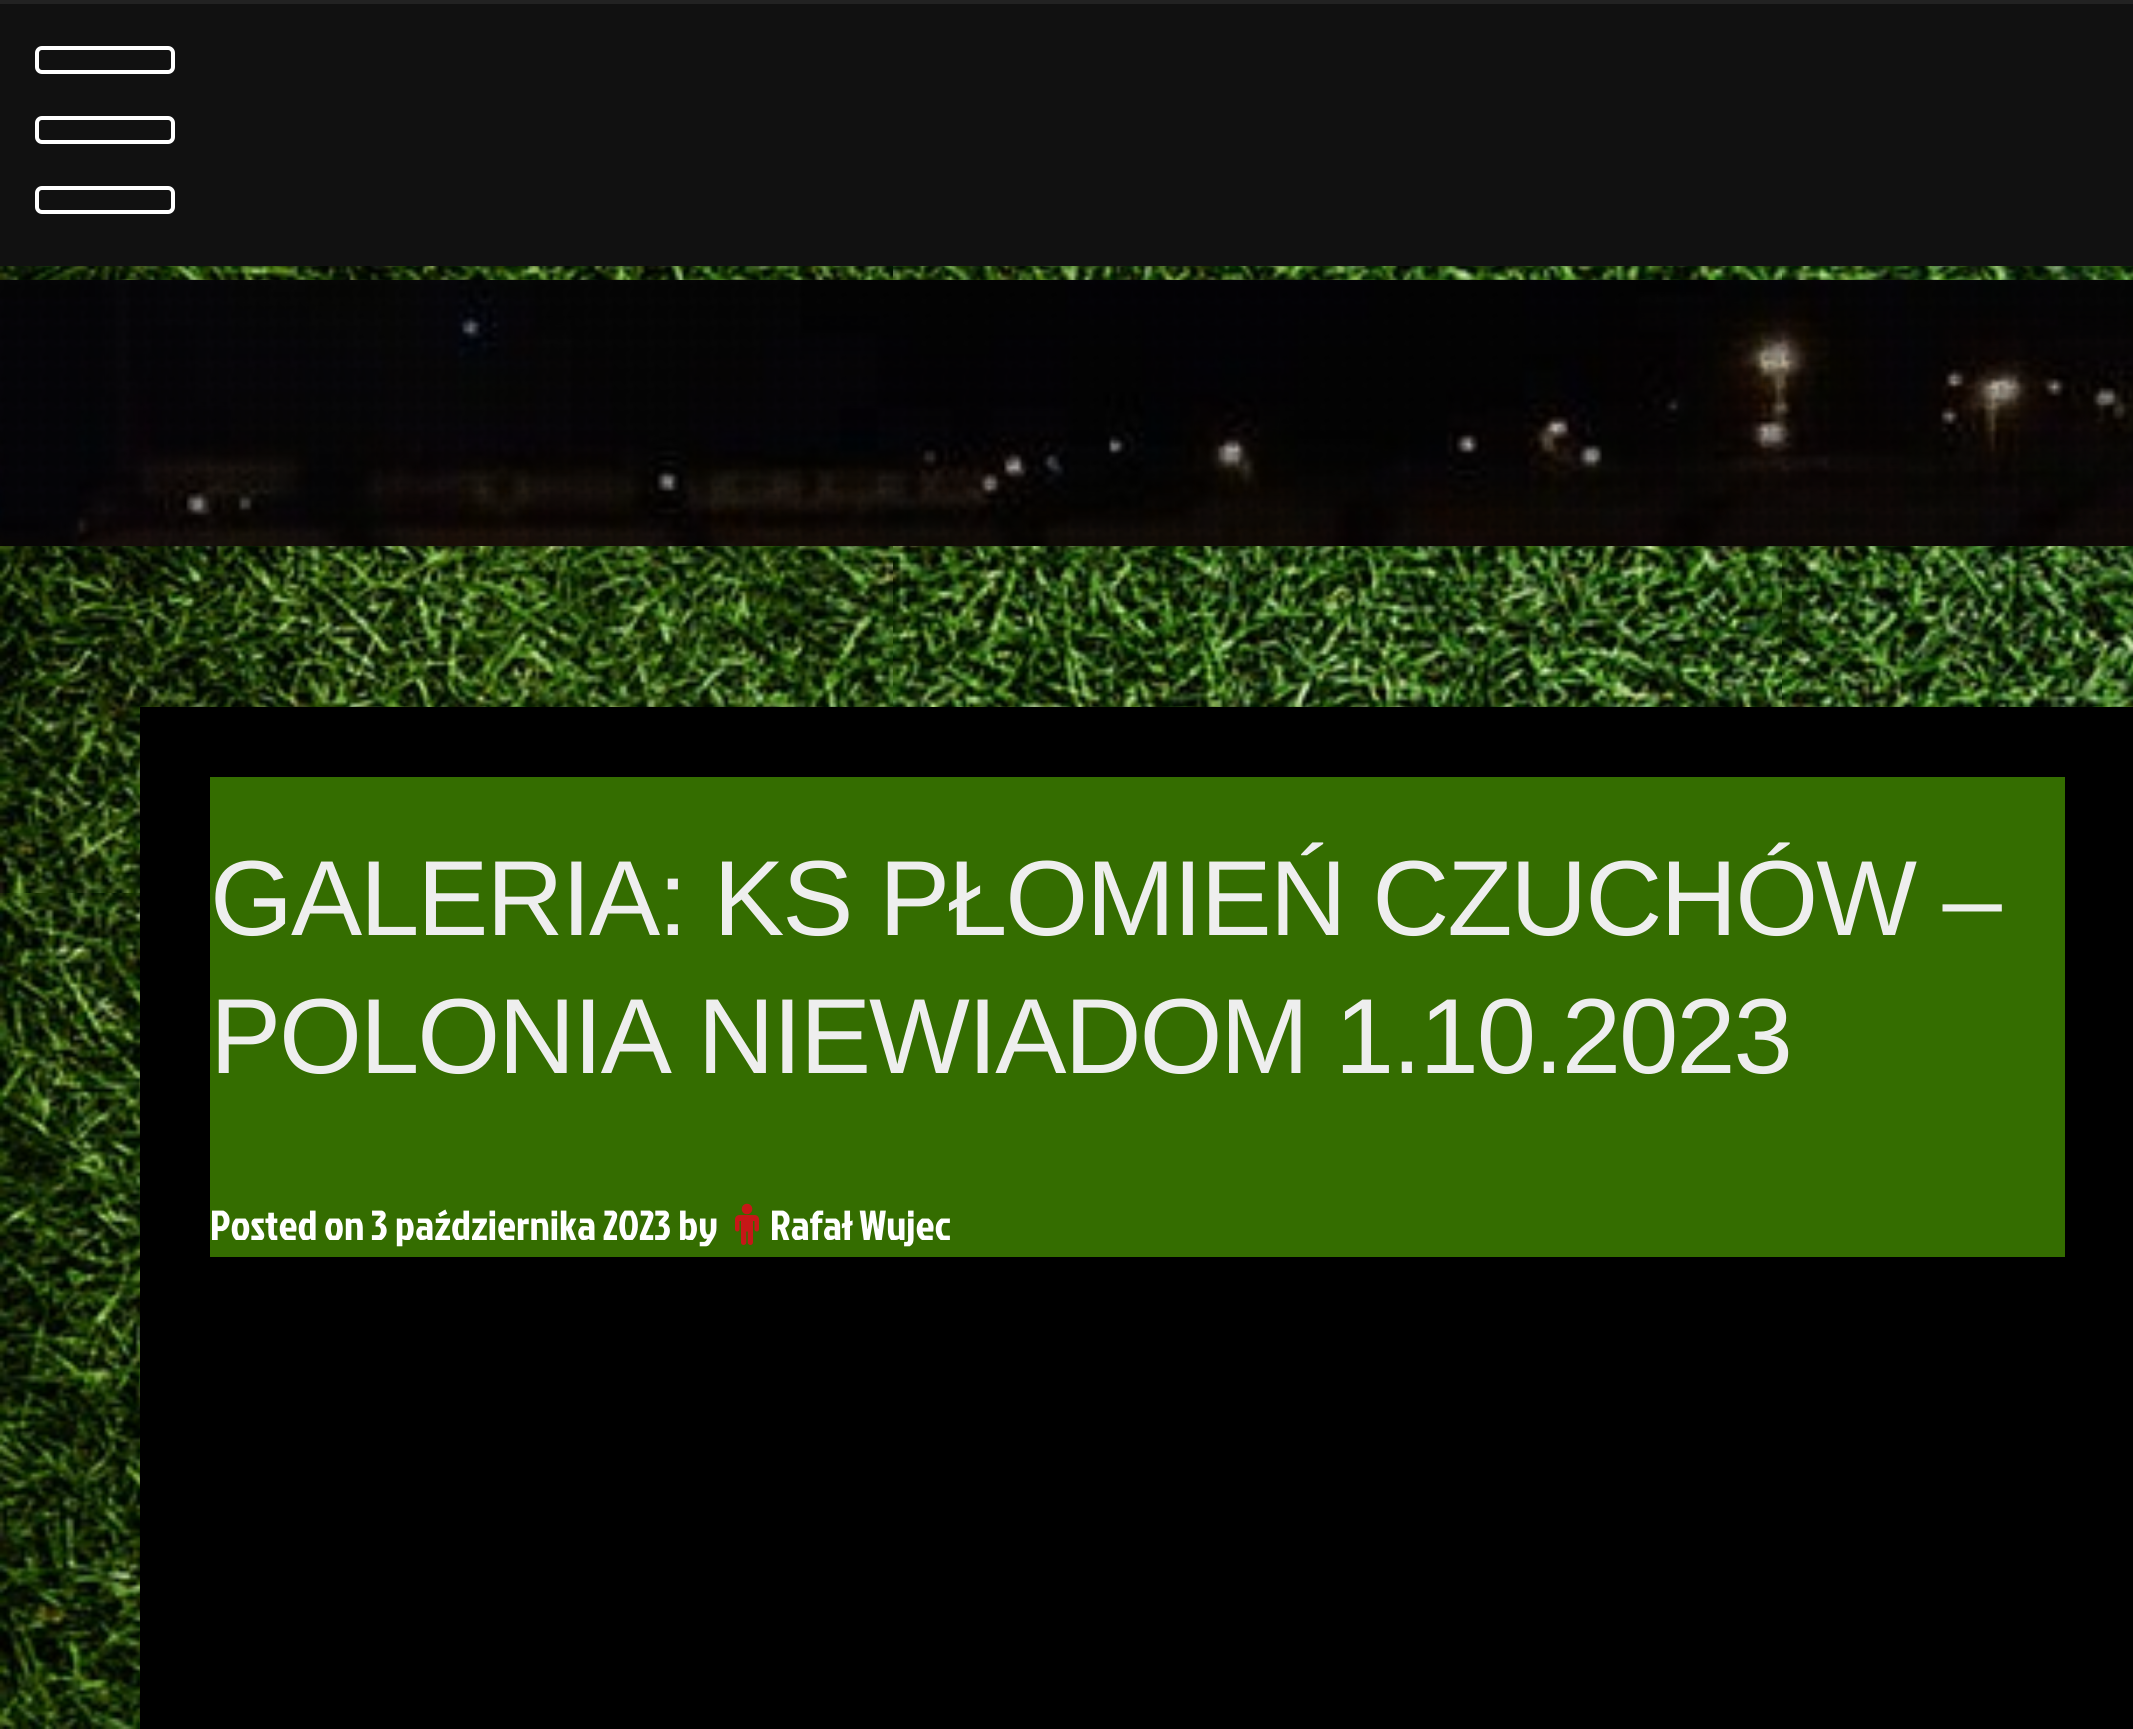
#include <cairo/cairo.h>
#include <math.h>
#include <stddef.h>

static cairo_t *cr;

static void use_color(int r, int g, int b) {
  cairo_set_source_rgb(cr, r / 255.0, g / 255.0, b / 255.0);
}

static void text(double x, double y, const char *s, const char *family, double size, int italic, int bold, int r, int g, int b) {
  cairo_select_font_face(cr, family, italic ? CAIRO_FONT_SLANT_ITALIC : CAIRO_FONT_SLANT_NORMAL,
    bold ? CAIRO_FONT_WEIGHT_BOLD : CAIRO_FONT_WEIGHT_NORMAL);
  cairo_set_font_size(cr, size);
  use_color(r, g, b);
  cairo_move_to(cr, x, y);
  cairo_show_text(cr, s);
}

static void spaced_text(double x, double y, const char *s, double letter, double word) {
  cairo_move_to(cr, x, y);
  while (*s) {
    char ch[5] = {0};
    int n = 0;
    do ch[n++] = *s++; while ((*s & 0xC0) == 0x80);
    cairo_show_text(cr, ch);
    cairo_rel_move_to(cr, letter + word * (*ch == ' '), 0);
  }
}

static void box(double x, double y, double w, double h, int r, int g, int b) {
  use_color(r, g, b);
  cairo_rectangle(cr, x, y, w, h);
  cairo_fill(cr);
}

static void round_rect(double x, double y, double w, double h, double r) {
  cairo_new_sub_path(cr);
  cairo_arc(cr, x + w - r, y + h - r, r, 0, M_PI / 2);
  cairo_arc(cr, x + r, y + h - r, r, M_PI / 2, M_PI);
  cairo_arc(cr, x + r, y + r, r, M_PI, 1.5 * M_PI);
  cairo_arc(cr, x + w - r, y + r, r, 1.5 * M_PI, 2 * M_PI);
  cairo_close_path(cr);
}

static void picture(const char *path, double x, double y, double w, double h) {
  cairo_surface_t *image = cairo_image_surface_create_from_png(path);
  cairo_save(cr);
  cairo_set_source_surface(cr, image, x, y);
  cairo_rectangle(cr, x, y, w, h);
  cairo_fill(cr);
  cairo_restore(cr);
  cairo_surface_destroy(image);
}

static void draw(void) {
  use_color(255, 255, 255);
  cairo_paint(cr);
  picture("img_01.png", 0, 266, 2133, 1463);
  box(0, 0, 2133, 4, 34, 34, 34);
  box(0, 4, 2133, 262, 17, 17, 17);
  round_rect(37, 48, 136, 24, 5);
  use_color(255, 255, 255);
  cairo_set_line_width(cr, 4);
  cairo_stroke(cr);
  round_rect(37, 118, 136, 24, 5);
  cairo_stroke(cr);
  round_rect(37, 188, 136, 24, 5);
  cairo_stroke(cr);
  picture("img_02.png", 0, 280, 2133, 266);
  picture("img_03.png", 0, 280, 2133, 266);
  box(140, 707, 1993, 1022, 0, 0, 0);
  box(210, 777, 1855, 480, 52, 109, 0);
  picture("img_04.png", 735, 1203, 24, 42);
  cairo_select_font_face(cr, "Liberation Sans", CAIRO_FONT_SLANT_NORMAL, CAIRO_FONT_WEIGHT_NORMAL);
  cairo_set_font_size(cr, 106.75);
  use_color(238, 238, 238);
  spaced_text(210, 935, "GALERIA: KS PŁOMIEŃ CZUCHÓW –", -2.1, 0);
  spaced_text(210, 1073, "POLONIA NIEWIADOM 1.10.2023", -2.1, 0);
  text(210, 1240, "Posted on 3 października 2023 by", "Jockey One", 42, 0, 0, 255, 255, 255);
  text(770, 1240, "Rafał Wujec", "Jockey One", 42, 0, 0, 255, 255, 255);
}

int main(void) {
  cairo_surface_t *surface = cairo_image_surface_create(CAIRO_FORMAT_RGB24, 2133, 1729);
  cr = cairo_create(surface);
  cairo_font_options_t *options = cairo_font_options_create();
  cairo_font_options_set_hint_metrics(options, CAIRO_HINT_METRICS_OFF);
  cairo_font_options_set_hint_style(options, CAIRO_HINT_STYLE_NONE);
  cairo_set_font_options(cr, options);
  cairo_set_miter_limit(cr, 4);
  draw();
  cairo_surface_write_to_png(surface, "out.png");
  cairo_font_options_destroy(options);
  cairo_destroy(cr);
  cairo_surface_destroy(surface);
  return 0;
}
